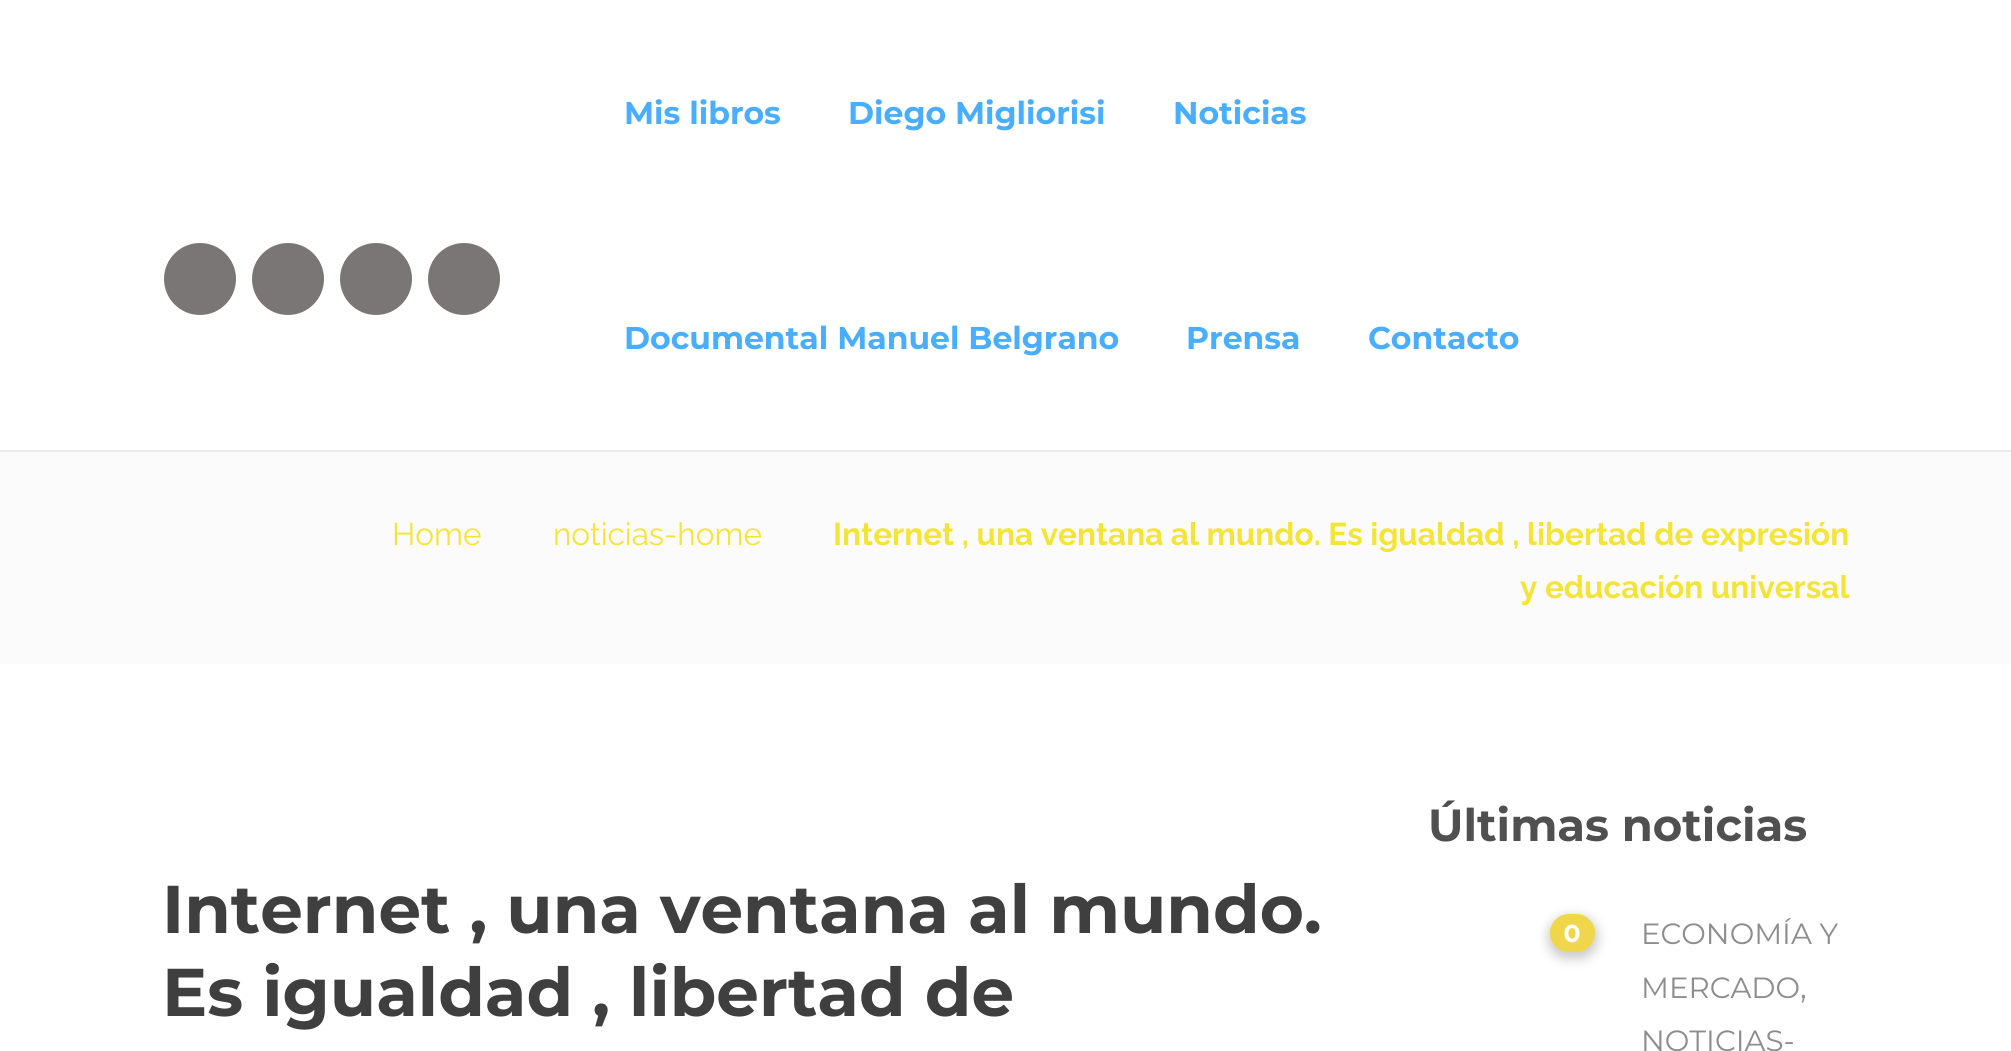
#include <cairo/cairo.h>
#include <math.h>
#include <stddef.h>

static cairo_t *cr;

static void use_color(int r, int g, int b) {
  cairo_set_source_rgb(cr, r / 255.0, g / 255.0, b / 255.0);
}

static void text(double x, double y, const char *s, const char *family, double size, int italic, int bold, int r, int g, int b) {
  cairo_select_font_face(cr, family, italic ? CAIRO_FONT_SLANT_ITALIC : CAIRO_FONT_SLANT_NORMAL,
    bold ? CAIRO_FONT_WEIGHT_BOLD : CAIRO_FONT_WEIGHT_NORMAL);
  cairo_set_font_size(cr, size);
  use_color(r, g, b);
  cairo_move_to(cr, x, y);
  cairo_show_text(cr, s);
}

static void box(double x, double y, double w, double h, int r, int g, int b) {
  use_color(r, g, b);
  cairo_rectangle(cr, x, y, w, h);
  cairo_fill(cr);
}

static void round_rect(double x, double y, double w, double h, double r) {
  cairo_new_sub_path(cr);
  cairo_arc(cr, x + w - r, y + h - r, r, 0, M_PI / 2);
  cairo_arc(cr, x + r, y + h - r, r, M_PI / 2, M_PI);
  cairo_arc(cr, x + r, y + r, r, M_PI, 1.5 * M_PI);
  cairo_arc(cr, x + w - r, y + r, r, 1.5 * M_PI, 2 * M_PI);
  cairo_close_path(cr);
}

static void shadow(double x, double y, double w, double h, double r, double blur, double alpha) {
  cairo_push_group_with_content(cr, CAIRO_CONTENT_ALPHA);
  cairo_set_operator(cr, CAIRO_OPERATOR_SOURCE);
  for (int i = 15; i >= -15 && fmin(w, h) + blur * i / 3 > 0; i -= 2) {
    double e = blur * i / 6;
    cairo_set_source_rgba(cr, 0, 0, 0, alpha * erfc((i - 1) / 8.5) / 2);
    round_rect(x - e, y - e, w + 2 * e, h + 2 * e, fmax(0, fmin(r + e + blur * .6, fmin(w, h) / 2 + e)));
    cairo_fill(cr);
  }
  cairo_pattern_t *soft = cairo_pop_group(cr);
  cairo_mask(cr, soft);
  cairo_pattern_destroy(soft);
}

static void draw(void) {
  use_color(255, 255, 255);
  cairo_paint(cr);
  box(0, 450, 2011, 2, 235, 235, 235);
  use_color(123, 118, 118);
  cairo_arc(cr, 200, 279, 36, 0, 2 * M_PI);
  cairo_fill(cr);
  cairo_arc(cr, 288, 279, 36, 0, 2 * M_PI);
  cairo_fill(cr);
  cairo_arc(cr, 376, 279, 36, 0, 2 * M_PI);
  cairo_fill(cr);
  cairo_arc(cr, 464, 279, 36, 0, 2 * M_PI);
  cairo_fill(cr);
  box(0, 452, 2011, 212, 251, 251, 251);
  use_color(0, 0, 0);
  shadow(1548, 916, 50, 43, 21.5, 5.5, 0.2);
  use_color(239, 214, 74);
  round_rect(1550, 914, 45, 38, 19);
  cairo_fill(cr);
  text(624, 124, "Mis libros", "Montserrat", 31.5, 0, 1, 73, 174, 255);
  text(848, 124, "Diego Migliorisi", "Montserrat", 31.5, 0, 1, 73, 174, 255);
  text(1173, 124, "Noticias", "Montserrat", 31.5, 0, 1, 73, 174, 255);
  text(624, 349, "Documental Manuel Belgrano", "Montserrat", 31.5, 0, 1, 73, 174, 255);
  text(1186, 349, "Prensa", "Montserrat", 31.5, 0, 1, 73, 174, 255);
  text(1368, 349, "Contacto", "Montserrat", 31.5, 0, 1, 73, 174, 255);
  text(392, 545, "Home", "Raleway", 31.5, 0, 0, 244, 228, 56);
  text(553, 545, "noticias-home", "Raleway", 31.5, 0, 0, 244, 228, 56);
  text(833, 545, "Internet , una ventana al mundo. Es igualdad , libertad de expresión", "Raleway", 31.5, 0, 1, 244, 228, 56);
  text(1520, 598, "y educación universal", "Raleway", 31.5, 0, 1, 244, 228, 56);
  text(162, 933, "Internet , una ventana al mundo.", "Montserrat", 67.5, 0, 1, 63, 63, 63);
  text(162, 1016, "Es igualdad , libertad de", "Montserrat", 67.5, 0, 1, 63, 63, 63);
  text(1428, 841, "Últimas noticias", "Montserrat", 45, 0, 1, 80, 80, 80);
  text(1563, 942, "0", "Raleway", 29.25, 0, 1, 255, 255, 255);
  text(1641, 944, "ECONOMÍA Y", "Montserrat", 29.25, 0, 0, 141, 141, 141);
  text(1641, 998, "MERCADO", "Montserrat", 29.25, 0, 0, 141, 141, 141);
  text(1800, 998, ",", "Montserrat", 31.5, 0, 0, 141, 141, 141);
  text(1641, 1051, "NOTICIAS-", "Montserrat", 29.25, 0, 0, 141, 141, 141);
}

int main(void) {
  cairo_surface_t *surface = cairo_image_surface_create(CAIRO_FORMAT_RGB24, 2011, 1051);
  cr = cairo_create(surface);
  cairo_font_options_t *options = cairo_font_options_create();
  cairo_font_options_set_hint_metrics(options, CAIRO_HINT_METRICS_OFF);
  cairo_font_options_set_hint_style(options, CAIRO_HINT_STYLE_NONE);
  cairo_set_font_options(cr, options);
  cairo_set_miter_limit(cr, 4);
  draw();
  cairo_surface_write_to_png(surface, "out.png");
  cairo_font_options_destroy(options);
  cairo_destroy(cr);
  cairo_surface_destroy(surface);
  return 0;
}
